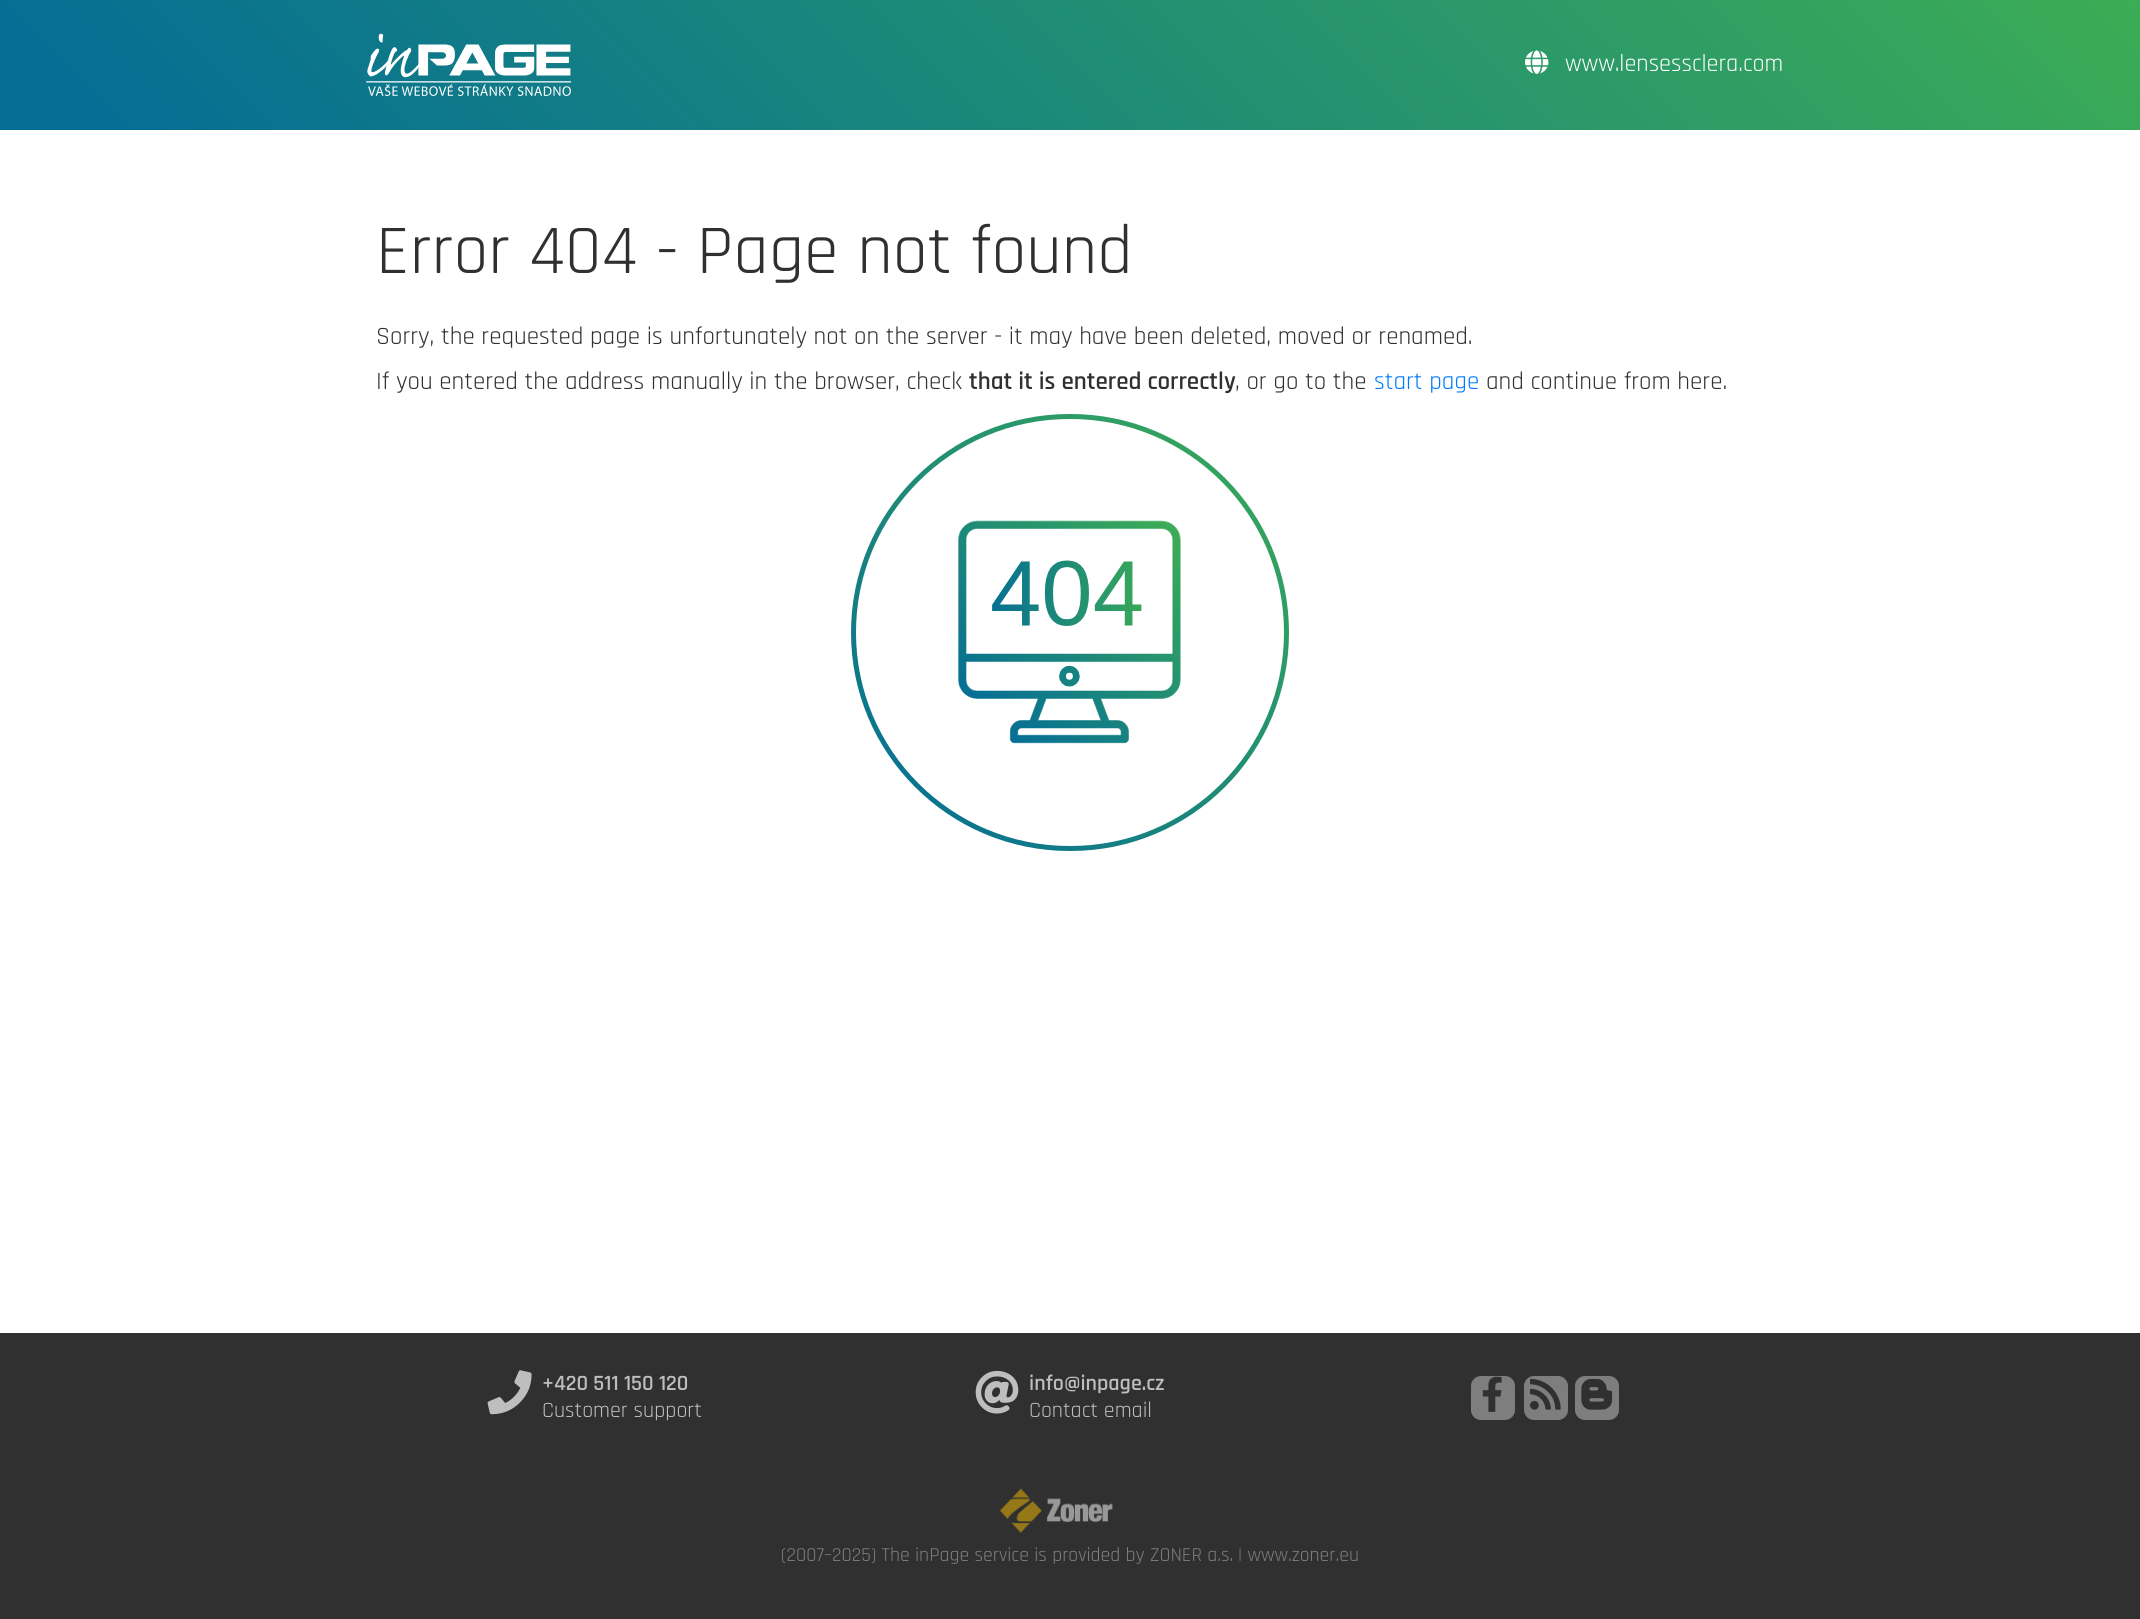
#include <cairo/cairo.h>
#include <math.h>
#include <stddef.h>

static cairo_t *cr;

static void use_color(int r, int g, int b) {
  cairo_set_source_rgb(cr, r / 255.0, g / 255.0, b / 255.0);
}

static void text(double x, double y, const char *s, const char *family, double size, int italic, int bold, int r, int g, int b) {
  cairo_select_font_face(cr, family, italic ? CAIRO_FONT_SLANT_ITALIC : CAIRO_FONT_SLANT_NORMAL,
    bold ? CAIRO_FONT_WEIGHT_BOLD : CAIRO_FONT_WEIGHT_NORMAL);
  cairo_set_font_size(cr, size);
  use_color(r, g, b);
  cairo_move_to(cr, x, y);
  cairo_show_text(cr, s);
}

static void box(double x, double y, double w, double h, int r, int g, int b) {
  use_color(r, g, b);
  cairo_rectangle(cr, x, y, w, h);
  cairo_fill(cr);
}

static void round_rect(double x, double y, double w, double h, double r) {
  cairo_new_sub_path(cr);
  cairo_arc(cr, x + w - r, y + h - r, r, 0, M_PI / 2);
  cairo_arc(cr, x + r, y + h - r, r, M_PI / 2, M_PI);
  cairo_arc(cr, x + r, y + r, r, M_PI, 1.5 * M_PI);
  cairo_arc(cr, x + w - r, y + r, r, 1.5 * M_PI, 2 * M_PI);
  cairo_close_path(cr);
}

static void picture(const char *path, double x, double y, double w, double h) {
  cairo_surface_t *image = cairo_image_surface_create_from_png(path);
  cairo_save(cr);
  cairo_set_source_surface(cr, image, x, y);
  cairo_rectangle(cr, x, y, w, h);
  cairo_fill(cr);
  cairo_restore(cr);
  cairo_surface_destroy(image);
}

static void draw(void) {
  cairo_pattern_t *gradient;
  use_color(255, 255, 255);
  cairo_paint(cr);
  gradient = cairo_pattern_create_linear(503, 633, 1638, -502);
  cairo_pattern_add_color_stop_rgba(gradient, 0.05, 0.02, 0.431, 0.584, 1);
  cairo_pattern_add_color_stop_rgba(gradient, 1, 0.235, 0.675, 0.333, 1);
  cairo_set_source(cr, gradient);
  cairo_pattern_destroy(gradient);
  cairo_rectangle(cr, 0, 0, 2140, 130);
  cairo_fill(cr);
  picture("img_01.png", 366, 33, 205, 63);
  picture("img_02.png", 1525, 50, 24, 24);
  gradient = cairo_pattern_create_linear(851, 851, 1289, 414);
  cairo_pattern_add_color_stop_rgba(gradient, 0.05, 0.02, 0.431, 0.584, 1);
  cairo_pattern_add_color_stop_rgba(gradient, 1, 0.235, 0.675, 0.333, 1);
  cairo_set_source(cr, gradient);
  cairo_pattern_destroy(gradient);
  round_rect(851, 414, 438, 437, 218.5);
  cairo_fill(cr);
  use_color(255, 255, 255);
  round_rect(856, 419, 428, 427, 213.5);
  cairo_fill(cr);
  picture("img_03.png", 958, 520, 223, 224);
  box(0, 1333, 2140, 286, 48, 48, 48);
  picture("img_04.png", 487, 1370, 45, 45);
  picture("img_05.png", 975, 1370, 44, 44);
  use_color(126, 126, 126);
  round_rect(1471, 1376, 44, 44, 10);
  cairo_fill(cr);
  picture("img_06.png", 1482, 1376, 20, 36);
  round_rect(1524, 1376, 44, 44, 10);
  cairo_fill(cr);
  picture("img_07.png", 1530, 1378, 31, 32);
  round_rect(1575, 1376, 44, 44, 10);
  cairo_fill(cr);
  picture("img_08.png", 1581, 1378, 32, 32);
  picture("img_09.png", 1000, 1488, 113, 45);
  text(1565, 71, "www.lensessclera.com", "Rajdhani", 24.25, 0, 0, 255, 255, 255);
  text(376, 273, "Error 404 - Page not found", "Rajdhani", 70, 0, 0, 48, 48, 48);
  text(376, 344, "Sorry, the requested page is unfortunately not on the server - it may have been deleted, moved or renamed.", "Rajdhani", 25, 0, 0, 48, 48, 48);
  text(376, 389, "If you entered the address manually in the browser, check", "Rajdhani", 25, 0, 0, 48, 48, 48);
  text(969, 389, "that it is entered correctly", "Rajdhani SemiBold", 25, 0, 0, 48, 48, 48);
  text(1235, 389, ", or go to the", "Rajdhani", 25, 0, 0, 48, 48, 48);
  text(1374, 389, "start page", "Rajdhani", 25, 0, 0, 0, 123, 255);
  text(1486, 389, "and continue from here.", "Rajdhani", 25, 0, 0, 48, 48, 48);
  text(542, 1390, "+420 511 150 120", "Rajdhani SemiBold", 22, 0, 0, 190, 190, 190);
  text(542, 1417, "Customer support", "Rajdhani", 22, 0, 0, 190, 190, 190);
  text(1029, 1390, "info@inpage.cz", "Rajdhani SemiBold", 22, 0, 0, 190, 190, 190);
  text(1029, 1417, "Contact email", "Rajdhani", 22, 0, 0, 190, 190, 190);
  text(781, 1561, "(2007–2025) The inPage service is provided by ZONER a.s.", "Rajdhani", 19.8, 0, 0, 126, 126, 126);
  text(1238, 1561, "| www.zoner.eu", "Rajdhani", 19.8, 0, 0, 126, 126, 126);
}

int main(void) {
  cairo_surface_t *surface = cairo_image_surface_create(CAIRO_FORMAT_RGB24, 2140, 1619);
  cr = cairo_create(surface);
  cairo_font_options_t *options = cairo_font_options_create();
  cairo_font_options_set_hint_metrics(options, CAIRO_HINT_METRICS_OFF);
  cairo_font_options_set_hint_style(options, CAIRO_HINT_STYLE_NONE);
  cairo_set_font_options(cr, options);
  cairo_set_miter_limit(cr, 4);
  draw();
  cairo_surface_write_to_png(surface, "out.png");
  cairo_font_options_destroy(options);
  cairo_destroy(cr);
  cairo_surface_destroy(surface);
  return 0;
}
